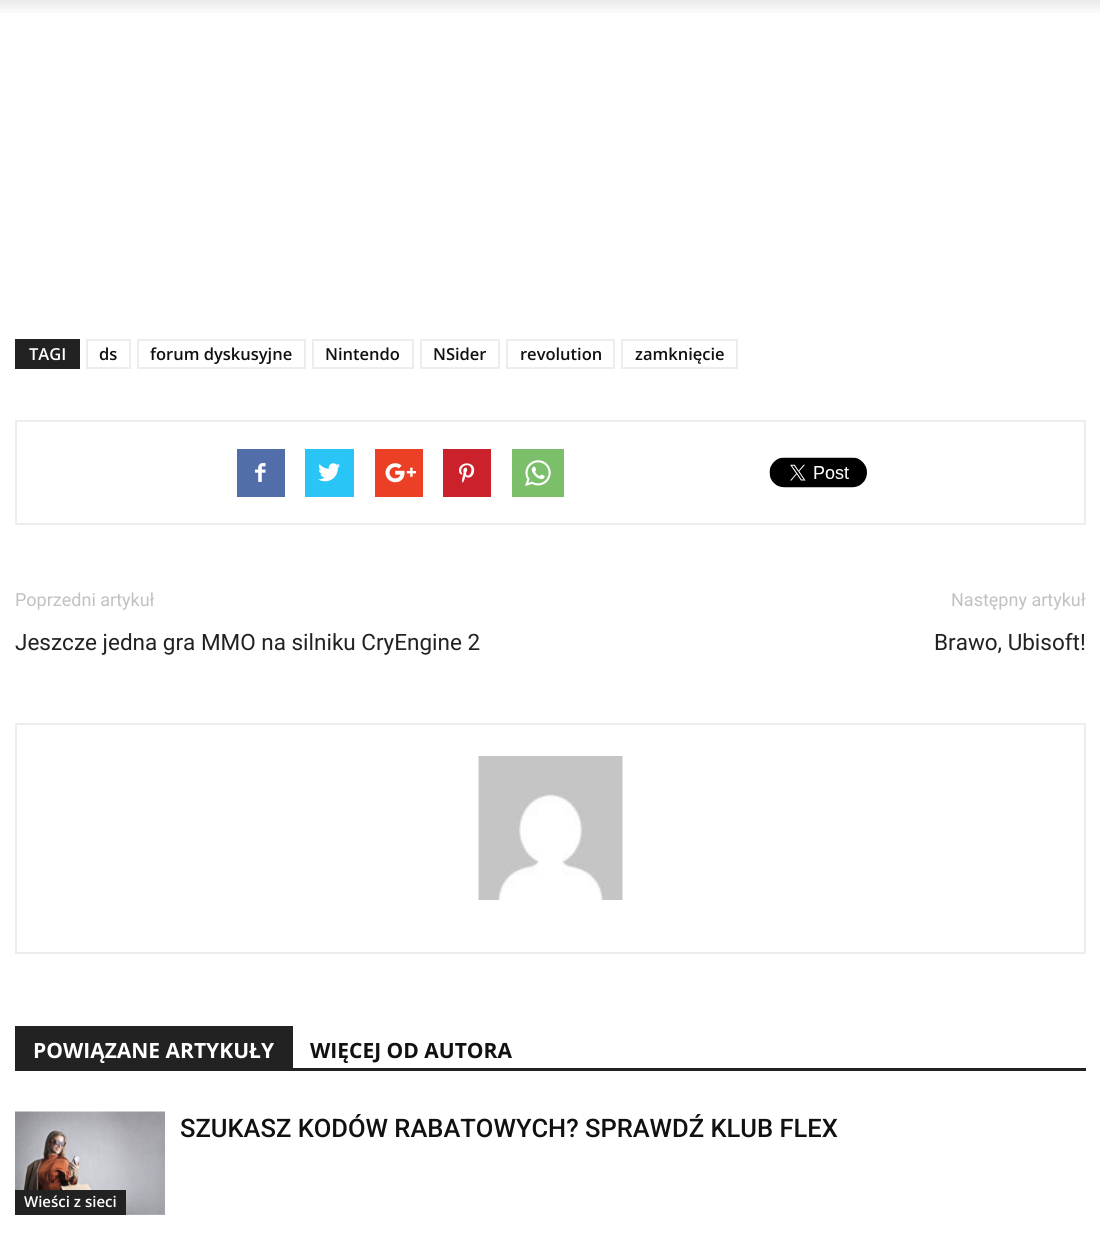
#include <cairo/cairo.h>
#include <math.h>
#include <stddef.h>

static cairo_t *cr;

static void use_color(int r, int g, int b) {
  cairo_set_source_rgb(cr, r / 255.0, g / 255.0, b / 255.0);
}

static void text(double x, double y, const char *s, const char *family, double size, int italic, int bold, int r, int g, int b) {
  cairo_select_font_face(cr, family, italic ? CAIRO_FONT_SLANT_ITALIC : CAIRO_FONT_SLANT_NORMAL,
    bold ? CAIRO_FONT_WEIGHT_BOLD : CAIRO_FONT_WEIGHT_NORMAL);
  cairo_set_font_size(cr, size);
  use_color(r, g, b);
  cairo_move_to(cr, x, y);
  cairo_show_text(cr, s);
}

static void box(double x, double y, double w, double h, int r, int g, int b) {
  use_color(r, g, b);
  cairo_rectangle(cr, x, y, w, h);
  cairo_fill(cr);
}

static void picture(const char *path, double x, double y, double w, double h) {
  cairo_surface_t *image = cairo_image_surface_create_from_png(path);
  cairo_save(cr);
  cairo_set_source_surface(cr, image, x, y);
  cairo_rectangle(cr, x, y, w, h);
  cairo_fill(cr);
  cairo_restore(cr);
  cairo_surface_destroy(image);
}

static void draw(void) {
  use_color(255, 255, 255);
  cairo_paint(cr);
  picture("img_01.png", 0, 0, 1100, 13);
  box(15, 339, 65, 30, 34, 34, 34);
  cairo_rectangle(cr, 87, 340, 43, 28);
  use_color(237, 237, 237);
  cairo_stroke(cr);
  cairo_rectangle(cr, 138, 340, 167, 28);
  cairo_stroke(cr);
  cairo_rectangle(cr, 313, 340, 100, 28);
  cairo_stroke(cr);
  cairo_rectangle(cr, 421, 340, 78, 28);
  cairo_stroke(cr);
  cairo_rectangle(cr, 507, 340, 107, 28);
  cairo_stroke(cr);
  cairo_rectangle(cr, 622, 340, 115, 28);
  cairo_stroke(cr);
  cairo_rectangle(cr, 16, 421, 1069, 103);
  cairo_stroke(cr);
  box(237, 449, 48, 48, 81, 110, 171);
  picture("img_02.png", 255, 463, 11, 19);
  box(305, 449, 49, 48, 41, 197, 246);
  picture("img_03.png", 318, 463, 22, 19);
  box(375, 449, 48, 48, 235, 64, 38);
  picture("img_04.png", 385, 463, 31, 20);
  box(443, 449, 48, 48, 202, 33, 42);
  picture("img_05.png", 459, 463, 16, 20);
  box(512, 449, 52, 48, 123, 191, 106);
  picture("img_06.png", 525, 460, 26, 26);
  picture("img_07.png", 769, 457, 98, 31);
  cairo_rectangle(cr, 16, 724, 1069, 229);
  use_color(237, 237, 237);
  cairo_stroke(cr);
  picture("img_08.png", 478, 756, 145, 144);
  box(15, 1068, 1071, 3, 34, 34, 34);
  box(15, 1026, 278, 42, 34, 34, 34);
  picture("img_09.png", 15, 1111, 150, 104);
  box(15, 1190, 111, 25, 34, 34, 34);
  text(29, 360, "TAGI", "Open Sans SemiBold", 16.5, 0, 0, 255, 255, 255);
  text(99, 360, "ds", "Open Sans SemiBold", 16.5, 0, 0, 17, 17, 17);
  text(150, 360, "forum dyskusyjne", "Open Sans SemiBold", 16.5, 0, 0, 17, 17, 17);
  text(325, 360, "Nintendo", "Open Sans SemiBold", 16.5, 0, 0, 17, 17, 17);
  text(433, 360, "NSider", "Open Sans SemiBold", 16.5, 0, 0, 17, 17, 17);
  text(520, 360, "revolution", "Open Sans SemiBold", 16.5, 0, 0, 17, 17, 17);
  text(635, 360, "zamknięcie", "Open Sans SemiBold", 16.5, 0, 0, 17, 17, 17);
  text(15, 606, "Poprzedni artykuł", "Roboto", 18, 0, 0, 193, 193, 193);
  text(15, 650, "Jeszcze jedna gra MMO na silniku CryEngine 2", "Roboto", 22.5, 0, 0, 34, 34, 34);
  text(951, 606, "Następny artykuł", "Roboto", 18, 0, 0, 193, 193, 193);
  text(934, 650, "Brawo, Ubisoft!", "Roboto", 22.5, 0, 0, 34, 34, 34);
  text(33, 1058, "POWIĄZANE ARTYKUŁY", "Open Sans", 21, 0, 1, 255, 255, 255);
  text(310, 1058, "WIĘCEJ OD AUTORA", "Open Sans", 21, 0, 1, 17, 17, 17);
  text(180, 1137, "SZUKASZ KODÓW RABATOWYCH? SPRAWDŹ KLUB FLEX", "Roboto Medium", 25.5, 0, 0, 17, 17, 17);
  text(24, 1207, "Wieści z sieci", "Open Sans SemiBold", 15, 0, 0, 255, 255, 255);
}

int main(void) {
  cairo_surface_t *surface = cairo_image_surface_create(CAIRO_FORMAT_RGB24, 1100, 1239);
  cr = cairo_create(surface);
  cairo_font_options_t *options = cairo_font_options_create();
  cairo_font_options_set_hint_metrics(options, CAIRO_HINT_METRICS_OFF);
  cairo_font_options_set_hint_style(options, CAIRO_HINT_STYLE_NONE);
  cairo_set_font_options(cr, options);
  cairo_set_miter_limit(cr, 4);
  draw();
  cairo_surface_write_to_png(surface, "out.png");
  cairo_font_options_destroy(options);
  cairo_destroy(cr);
  cairo_surface_destroy(surface);
  return 0;
}
